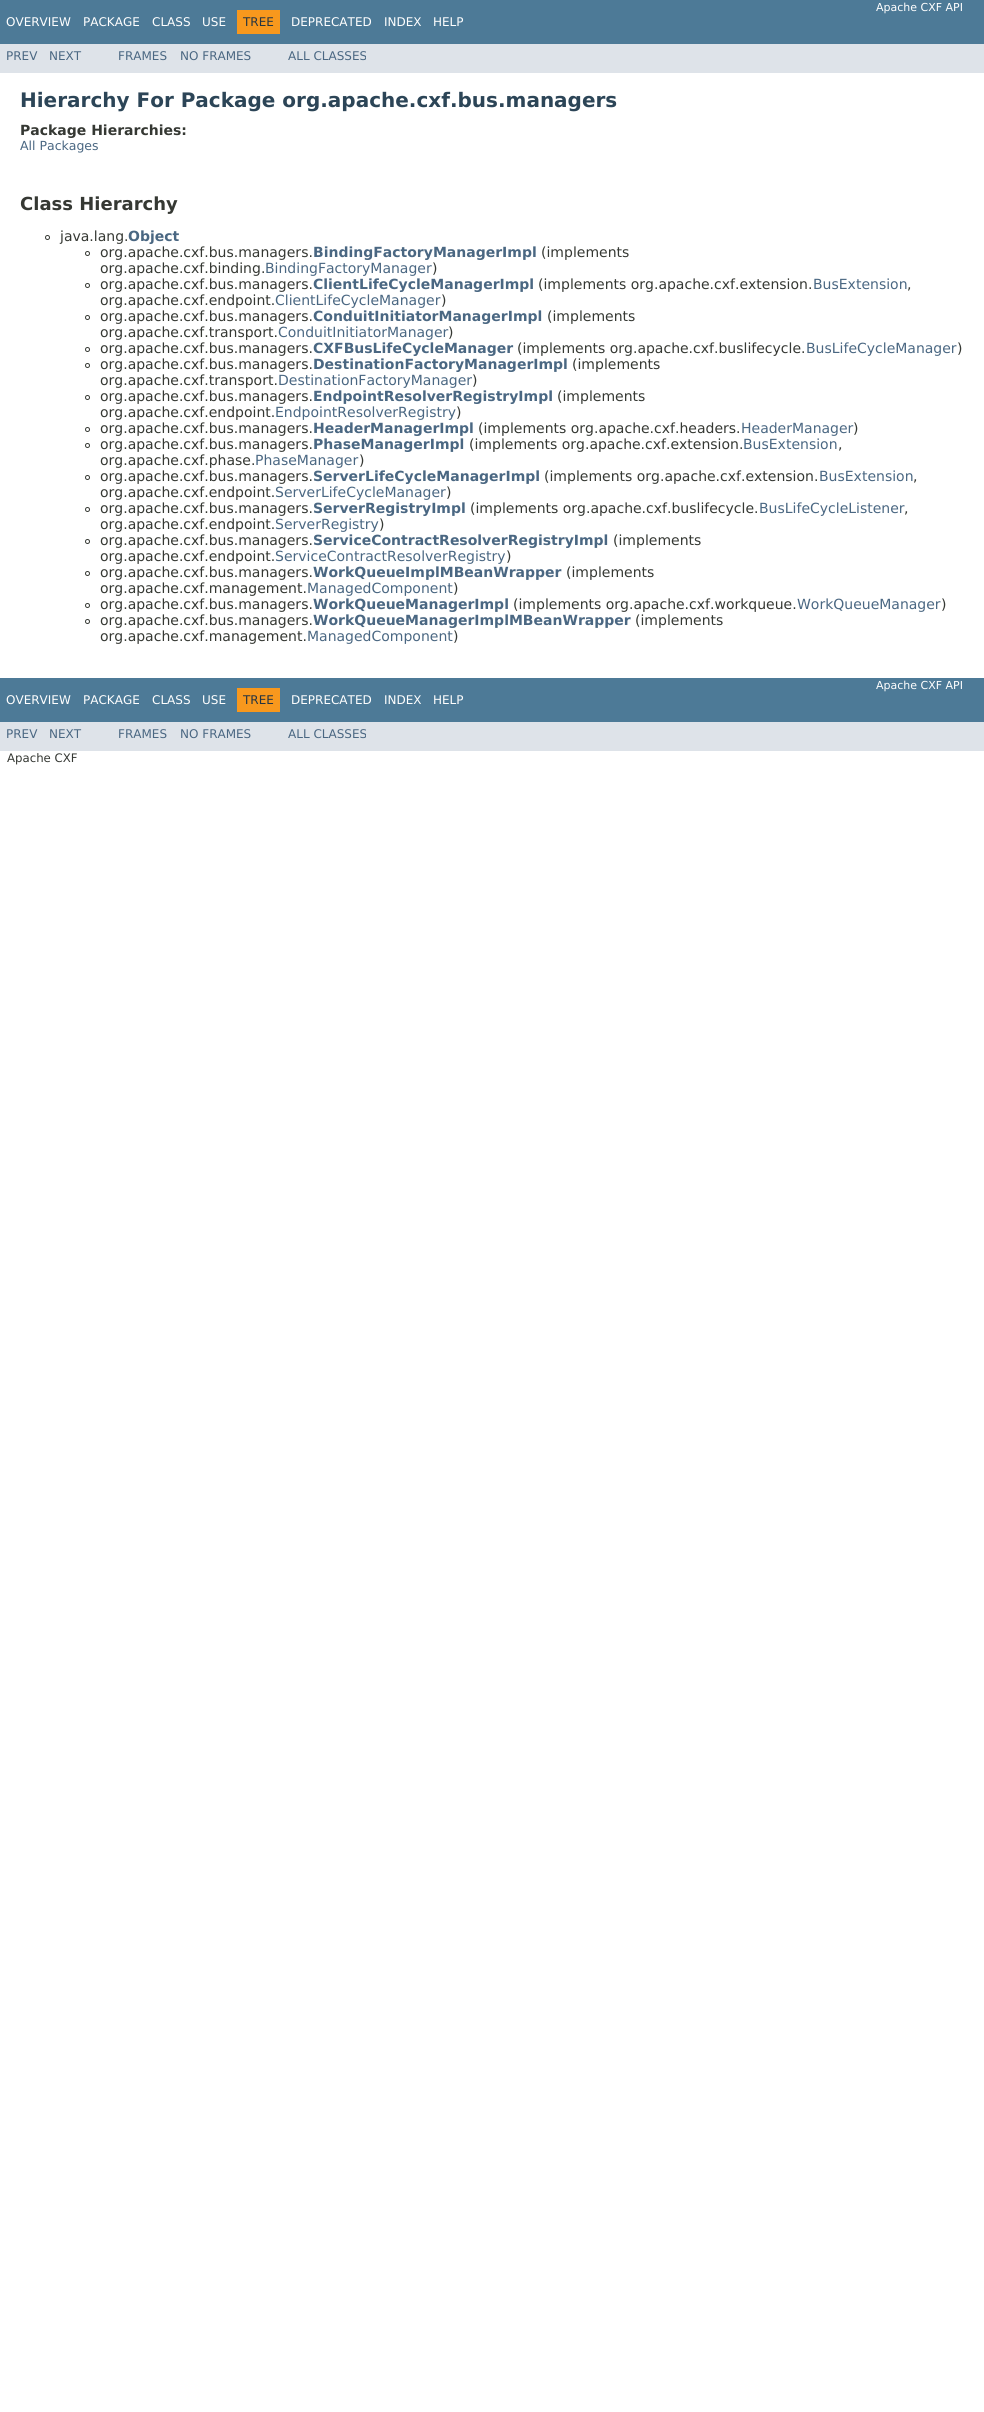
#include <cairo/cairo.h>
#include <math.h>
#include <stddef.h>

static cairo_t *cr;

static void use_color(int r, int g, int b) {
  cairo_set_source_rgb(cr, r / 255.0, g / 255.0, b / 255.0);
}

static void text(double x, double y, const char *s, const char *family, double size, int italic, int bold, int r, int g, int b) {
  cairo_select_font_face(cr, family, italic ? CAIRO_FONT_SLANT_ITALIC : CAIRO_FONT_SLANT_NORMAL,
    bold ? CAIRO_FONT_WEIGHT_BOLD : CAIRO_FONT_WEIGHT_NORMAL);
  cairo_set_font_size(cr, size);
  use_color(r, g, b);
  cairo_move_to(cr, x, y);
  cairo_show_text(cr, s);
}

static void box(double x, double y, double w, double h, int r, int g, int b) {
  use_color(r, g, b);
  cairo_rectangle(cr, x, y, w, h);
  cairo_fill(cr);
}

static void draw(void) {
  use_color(255, 255, 255);
  cairo_paint(cr);
  box(0, 0, 984, 44, 77, 122, 151);
  box(237, 10, 43, 24, 248, 152, 29);
  box(0, 44, 984, 29, 222, 227, 233);
  cairo_arc(cr, 47.5, 237.5, 2, 0, 2 * M_PI);
  use_color(53, 56, 51);
  cairo_set_line_width(cr, 1);
  cairo_stroke(cr);
  cairo_arc(cr, 87.5, 253.5, 2, 0, 2 * M_PI);
  cairo_stroke(cr);
  cairo_arc(cr, 87.5, 285.5, 2, 0, 2 * M_PI);
  cairo_stroke(cr);
  cairo_arc(cr, 87.5, 317.5, 2, 0, 2 * M_PI);
  cairo_stroke(cr);
  cairo_arc(cr, 87.5, 349.5, 2, 0, 2 * M_PI);
  cairo_stroke(cr);
  cairo_arc(cr, 87.5, 365.5, 2, 0, 2 * M_PI);
  cairo_stroke(cr);
  cairo_arc(cr, 87.5, 397.5, 2, 0, 2 * M_PI);
  cairo_stroke(cr);
  cairo_arc(cr, 87.5, 429.5, 2, 0, 2 * M_PI);
  cairo_stroke(cr);
  cairo_arc(cr, 87.5, 445.5, 2, 0, 2 * M_PI);
  cairo_stroke(cr);
  cairo_arc(cr, 87.5, 477.5, 2, 0, 2 * M_PI);
  cairo_stroke(cr);
  cairo_arc(cr, 87.5, 509.5, 2, 0, 2 * M_PI);
  cairo_stroke(cr);
  cairo_arc(cr, 87.5, 541.5, 2, 0, 2 * M_PI);
  cairo_stroke(cr);
  cairo_arc(cr, 87.5, 573.5, 2, 0, 2 * M_PI);
  cairo_stroke(cr);
  cairo_arc(cr, 87.5, 605.5, 2, 0, 2 * M_PI);
  cairo_stroke(cr);
  cairo_arc(cr, 87.5, 621.5, 2, 0, 2 * M_PI);
  cairo_stroke(cr);
  box(0, 678, 984, 44, 77, 122, 151);
  box(237, 688, 43, 24, 248, 152, 29);
  box(0, 722, 984, 29, 222, 227, 233);
  text(876, 11, "Apache CXF API", "DejaVu Sans", 11, 0, 0, 255, 255, 255);
  text(6, 26, "OVERVIEW", "DejaVu Sans", 12, 0, 0, 255, 255, 255);
  text(83, 26, "PACKAGE", "DejaVu Sans", 12, 0, 0, 255, 255, 255);
  text(152, 26, "CLASS", "DejaVu Sans", 12, 0, 0, 255, 255, 255);
  text(202, 26, "USE", "DejaVu Sans", 12, 0, 0, 255, 255, 255);
  text(243, 26, "TREE", "DejaVu Sans", 12, 0, 0, 37, 52, 65);
  text(291, 26, "DEPRECATED", "DejaVu Sans", 12, 0, 0, 255, 255, 255);
  text(384, 26, "INDEX", "DejaVu Sans", 12, 0, 0, 255, 255, 255);
  text(433, 26, "HELP", "DejaVu Sans", 12, 0, 0, 255, 255, 255);
  text(6, 60, "PREV", "DejaVu Sans", 12, 0, 0, 74, 103, 130);
  text(49, 60, "NEXT", "DejaVu Sans", 12, 0, 0, 74, 103, 130);
  text(118, 60, "FRAMES", "DejaVu Sans", 12, 0, 0, 74, 103, 130);
  text(180, 60, "NO FRAMES", "DejaVu Sans", 12, 0, 0, 74, 103, 130);
  text(288, 60, "ALL CLASSES", "DejaVu Sans", 12, 0, 0, 74, 103, 130);
  text(20, 107, "Hierarchy For Package org.apache.cxf.bus.managers", "DejaVu Sans", 20, 0, 1, 44, 69, 87);
  text(20, 135, "Package Hierarchies:", "DejaVu Sans", 14, 0, 1, 53, 56, 51);
  text(20, 150, "All Packages", "DejaVu Sans", 12.5, 0, 0, 74, 103, 130);
  text(20, 210, "Class Hierarchy", "DejaVu Sans", 18, 0, 1, 53, 56, 51);
  text(60, 241, "java.lang.", "DejaVu Sans", 14, 0, 0, 53, 56, 51);
  text(128, 241, "Object", "DejaVu Sans", 14, 0, 1, 74, 103, 130);
  text(100, 257, "org.apache.cxf.bus.managers.", "DejaVu Sans", 14, 0, 0, 53, 56, 51);
  text(313, 257, "BindingFactoryManagerImpl", "DejaVu Sans", 14, 0, 1, 74, 103, 130);
  text(541, 257, "(implements", "DejaVu Sans", 14, 0, 0, 53, 56, 51);
  text(100, 273, "org.apache.cxf.binding.", "DejaVu Sans", 14, 0, 0, 53, 56, 51);
  text(265, 273, "BindingFactoryManager", "DejaVu Sans", 14, 0, 0, 74, 103, 130);
  text(432, 273, ")", "DejaVu Sans", 14, 0, 0, 53, 56, 51);
  text(100, 289, "org.apache.cxf.bus.managers.", "DejaVu Sans", 14, 0, 0, 53, 56, 51);
  text(313, 289, "ClientLifeCycleManagerImpl", "DejaVu Sans", 14, 0, 1, 74, 103, 130);
  text(538, 289, "(implements org.apache.cxf.extension.", "DejaVu Sans", 14, 0, 0, 53, 56, 51);
  text(813, 289, "BusExtension", "DejaVu Sans", 14, 0, 0, 74, 103, 130);
  text(907, 289, ",", "DejaVu Sans", 14, 0, 0, 53, 56, 51);
  text(100, 305, "org.apache.cxf.endpoint.", "DejaVu Sans", 14, 0, 0, 53, 56, 51);
  text(275, 305, "ClientLifeCycleManager", "DejaVu Sans", 14, 0, 0, 74, 103, 130);
  text(441, 305, ")", "DejaVu Sans", 14, 0, 0, 53, 56, 51);
  text(100, 321, "org.apache.cxf.bus.managers.", "DejaVu Sans", 14, 0, 0, 53, 56, 51);
  text(313, 321, "ConduitInitiatorManagerImpl", "DejaVu Sans", 14, 0, 1, 74, 103, 130);
  text(547, 321, "(implements", "DejaVu Sans", 14, 0, 0, 53, 56, 51);
  text(100, 337, "org.apache.cxf.transport.", "DejaVu Sans", 14, 0, 0, 53, 56, 51);
  text(278, 337, "ConduitInitiatorManager", "DejaVu Sans", 14, 0, 0, 74, 103, 130);
  text(448, 337, ")", "DejaVu Sans", 14, 0, 0, 53, 56, 51);
  text(100, 353, "org.apache.cxf.bus.managers.", "DejaVu Sans", 14, 0, 0, 53, 56, 51);
  text(313, 353, "CXFBusLifeCycleManager", "DejaVu Sans", 14, 0, 1, 74, 103, 130);
  text(517, 353, "(implements org.apache.cxf.buslifecycle.", "DejaVu Sans", 14, 0, 0, 53, 56, 51);
  text(806, 353, "BusLifeCycleManager", "DejaVu Sans", 14, 0, 0, 74, 103, 130);
  text(957, 353, ")", "DejaVu Sans", 14, 0, 0, 53, 56, 51);
  text(100, 369, "org.apache.cxf.bus.managers.", "DejaVu Sans", 14, 0, 0, 53, 56, 51);
  text(313, 369, "DestinationFactoryManagerImpl", "DejaVu Sans", 14, 0, 1, 74, 103, 130);
  text(572, 369, "(implements", "DejaVu Sans", 14, 0, 0, 53, 56, 51);
  text(100, 385, "org.apache.cxf.transport.", "DejaVu Sans", 14, 0, 0, 53, 56, 51);
  text(278, 385, "DestinationFactoryManager", "DejaVu Sans", 14, 0, 0, 74, 103, 130);
  text(472, 385, ")", "DejaVu Sans", 14, 0, 0, 53, 56, 51);
  text(100, 401, "org.apache.cxf.bus.managers.", "DejaVu Sans", 14, 0, 0, 53, 56, 51);
  text(313, 401, "EndpointResolverRegistryImpl", "DejaVu Sans", 14, 0, 1, 74, 103, 130);
  text(557, 401, "(implements", "DejaVu Sans", 14, 0, 0, 53, 56, 51);
  text(100, 417, "org.apache.cxf.endpoint.", "DejaVu Sans", 14, 0, 0, 53, 56, 51);
  text(275, 417, "EndpointResolverRegistry", "DejaVu Sans", 14, 0, 0, 74, 103, 130);
  text(456, 417, ")", "DejaVu Sans", 14, 0, 0, 53, 56, 51);
  text(100, 433, "org.apache.cxf.bus.managers.", "DejaVu Sans", 14, 0, 0, 53, 56, 51);
  text(313, 433, "HeaderManagerImpl", "DejaVu Sans", 14, 0, 1, 74, 103, 130);
  text(478, 433, "(implements org.apache.cxf.headers.", "DejaVu Sans", 14, 0, 0, 53, 56, 51);
  text(741, 433, "HeaderManager", "DejaVu Sans", 14, 0, 0, 74, 103, 130);
  text(853, 433, ")", "DejaVu Sans", 14, 0, 0, 53, 56, 51);
  text(100, 449, "org.apache.cxf.bus.managers.", "DejaVu Sans", 14, 0, 0, 53, 56, 51);
  text(313, 449, "PhaseManagerImpl", "DejaVu Sans", 14, 0, 1, 74, 103, 130);
  text(469, 449, "(implements org.apache.cxf.extension.", "DejaVu Sans", 14, 0, 0, 53, 56, 51);
  text(743, 449, "BusExtension", "DejaVu Sans", 14, 0, 0, 74, 103, 130);
  text(838, 449, ",", "DejaVu Sans", 14, 0, 0, 53, 56, 51);
  text(100, 465, "org.apache.cxf.phase.", "DejaVu Sans", 14, 0, 0, 53, 56, 51);
  text(255, 465, "PhaseManager", "DejaVu Sans", 14, 0, 0, 74, 103, 130);
  text(359, 465, ")", "DejaVu Sans", 14, 0, 0, 53, 56, 51);
  text(100, 481, "org.apache.cxf.bus.managers.", "DejaVu Sans", 14, 0, 0, 53, 56, 51);
  text(313, 481, "ServerLifeCycleManagerImpl", "DejaVu Sans", 14, 0, 1, 74, 103, 130);
  text(544, 481, "(implements org.apache.cxf.extension.", "DejaVu Sans", 14, 0, 0, 53, 56, 51);
  text(819, 481, "BusExtension", "DejaVu Sans", 14, 0, 0, 74, 103, 130);
  text(913, 481, ",", "DejaVu Sans", 14, 0, 0, 53, 56, 51);
  text(100, 497, "org.apache.cxf.endpoint.", "DejaVu Sans", 14, 0, 0, 53, 56, 51);
  text(275, 497, "ServerLifeCycleManager", "DejaVu Sans", 14, 0, 0, 74, 103, 130);
  text(446, 497, ")", "DejaVu Sans", 14, 0, 0, 53, 56, 51);
  text(100, 513, "org.apache.cxf.bus.managers.", "DejaVu Sans", 14, 0, 0, 53, 56, 51);
  text(313, 513, "ServerRegistryImpl", "DejaVu Sans", 14, 0, 1, 74, 103, 130);
  text(470, 513, "(implements org.apache.cxf.buslifecycle.", "DejaVu Sans", 14, 0, 0, 53, 56, 51);
  text(759, 513, "BusLifeCycleListener", "DejaVu Sans", 14, 0, 0, 74, 103, 130);
  text(904, 513, ",", "DejaVu Sans", 14, 0, 0, 53, 56, 51);
  text(100, 529, "org.apache.cxf.endpoint.", "DejaVu Sans", 14, 0, 0, 53, 56, 51);
  text(275, 529, "ServerRegistry", "DejaVu Sans", 14, 0, 0, 74, 103, 130);
  text(379, 529, ")", "DejaVu Sans", 14, 0, 0, 53, 56, 51);
  text(100, 545, "org.apache.cxf.bus.managers.", "DejaVu Sans", 14, 0, 0, 53, 56, 51);
  text(313, 545, "ServiceContractResolverRegistryImpl", "DejaVu Sans", 14, 0, 1, 74, 103, 130);
  text(613, 545, "(implements", "DejaVu Sans", 14, 0, 0, 53, 56, 51);
  text(100, 561, "org.apache.cxf.endpoint.", "DejaVu Sans", 14, 0, 0, 53, 56, 51);
  text(275, 561, "ServiceContractResolverRegistry", "DejaVu Sans", 14, 0, 0, 74, 103, 130);
  text(506, 561, ")", "DejaVu Sans", 14, 0, 0, 53, 56, 51);
  text(100, 577, "org.apache.cxf.bus.managers.", "DejaVu Sans", 14, 0, 0, 53, 56, 51);
  text(313, 577, "WorkQueueImplMBeanWrapper", "DejaVu Sans", 14, 0, 1, 74, 103, 130);
  text(566, 577, "(implements", "DejaVu Sans", 14, 0, 0, 53, 56, 51);
  text(100, 593, "org.apache.cxf.management.", "DejaVu Sans", 14, 0, 0, 53, 56, 51);
  text(307, 593, "ManagedComponent", "DejaVu Sans", 14, 0, 0, 74, 103, 130);
  text(453, 593, ")", "DejaVu Sans", 14, 0, 0, 53, 56, 51);
  text(100, 609, "org.apache.cxf.bus.managers.", "DejaVu Sans", 14, 0, 0, 53, 56, 51);
  text(313, 609, "WorkQueueManagerImpl", "DejaVu Sans", 14, 0, 1, 74, 103, 130);
  text(513, 609, "(implements org.apache.cxf.workqueue.", "DejaVu Sans", 14, 0, 0, 53, 56, 51);
  text(797, 609, "WorkQueueManager", "DejaVu Sans", 14, 0, 0, 74, 103, 130);
  text(941, 609, ")", "DejaVu Sans", 14, 0, 0, 53, 56, 51);
  text(100, 625, "org.apache.cxf.bus.managers.", "DejaVu Sans", 14, 0, 0, 53, 56, 51);
  text(313, 625, "WorkQueueManagerImplMBeanWrapper", "DejaVu Sans", 14, 0, 1, 74, 103, 130);
  text(635, 625, "(implements", "DejaVu Sans", 14, 0, 0, 53, 56, 51);
  text(100, 641, "org.apache.cxf.management.", "DejaVu Sans", 14, 0, 0, 53, 56, 51);
  text(307, 641, "ManagedComponent", "DejaVu Sans", 14, 0, 0, 74, 103, 130);
  text(453, 641, ")", "DejaVu Sans", 14, 0, 0, 53, 56, 51);
  text(876, 689, "Apache CXF API", "DejaVu Sans", 11, 0, 0, 255, 255, 255);
  text(6, 704, "OVERVIEW", "DejaVu Sans", 12, 0, 0, 255, 255, 255);
  text(83, 704, "PACKAGE", "DejaVu Sans", 12, 0, 0, 255, 255, 255);
  text(152, 704, "CLASS", "DejaVu Sans", 12, 0, 0, 255, 255, 255);
  text(202, 704, "USE", "DejaVu Sans", 12, 0, 0, 255, 255, 255);
  text(243, 704, "TREE", "DejaVu Sans", 12, 0, 0, 37, 52, 65);
  text(291, 704, "DEPRECATED", "DejaVu Sans", 12, 0, 0, 255, 255, 255);
  text(384, 704, "INDEX", "DejaVu Sans", 12, 0, 0, 255, 255, 255);
  text(433, 704, "HELP", "DejaVu Sans", 12, 0, 0, 255, 255, 255);
  text(6, 738, "PREV", "DejaVu Sans", 12, 0, 0, 74, 103, 130);
  text(49, 738, "NEXT", "DejaVu Sans", 12, 0, 0, 74, 103, 130);
  text(118, 738, "FRAMES", "DejaVu Sans", 12, 0, 0, 74, 103, 130);
  text(180, 738, "NO FRAMES", "DejaVu Sans", 12, 0, 0, 74, 103, 130);
  text(288, 738, "ALL CLASSES", "DejaVu Sans", 12, 0, 0, 74, 103, 130);
  text(7, 762, "Apache CXF", "DejaVu Sans", 11.75, 0, 0, 53, 56, 51);
}

int main(void) {
  cairo_surface_t *surface = cairo_image_surface_create(CAIRO_FORMAT_RGB24, 984, 2412);
  cr = cairo_create(surface);
  cairo_font_options_t *options = cairo_font_options_create();
  cairo_font_options_set_hint_metrics(options, CAIRO_HINT_METRICS_OFF);
  cairo_font_options_set_hint_style(options, CAIRO_HINT_STYLE_NONE);
  cairo_set_font_options(cr, options);
  cairo_set_miter_limit(cr, 4);
  draw();
  cairo_surface_write_to_png(surface, "out.png");
  cairo_font_options_destroy(options);
  cairo_destroy(cr);
  cairo_surface_destroy(surface);
  return 0;
}
